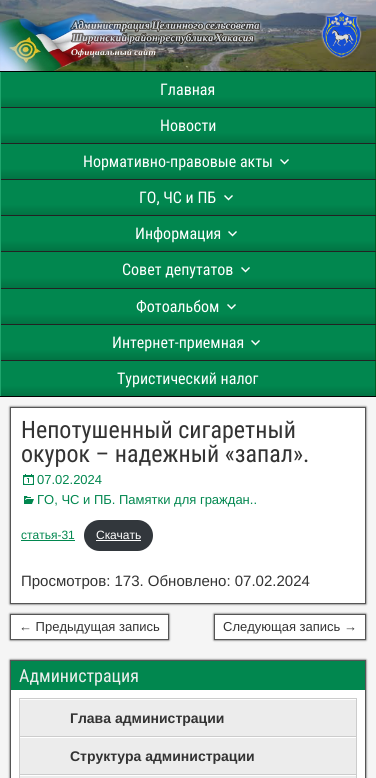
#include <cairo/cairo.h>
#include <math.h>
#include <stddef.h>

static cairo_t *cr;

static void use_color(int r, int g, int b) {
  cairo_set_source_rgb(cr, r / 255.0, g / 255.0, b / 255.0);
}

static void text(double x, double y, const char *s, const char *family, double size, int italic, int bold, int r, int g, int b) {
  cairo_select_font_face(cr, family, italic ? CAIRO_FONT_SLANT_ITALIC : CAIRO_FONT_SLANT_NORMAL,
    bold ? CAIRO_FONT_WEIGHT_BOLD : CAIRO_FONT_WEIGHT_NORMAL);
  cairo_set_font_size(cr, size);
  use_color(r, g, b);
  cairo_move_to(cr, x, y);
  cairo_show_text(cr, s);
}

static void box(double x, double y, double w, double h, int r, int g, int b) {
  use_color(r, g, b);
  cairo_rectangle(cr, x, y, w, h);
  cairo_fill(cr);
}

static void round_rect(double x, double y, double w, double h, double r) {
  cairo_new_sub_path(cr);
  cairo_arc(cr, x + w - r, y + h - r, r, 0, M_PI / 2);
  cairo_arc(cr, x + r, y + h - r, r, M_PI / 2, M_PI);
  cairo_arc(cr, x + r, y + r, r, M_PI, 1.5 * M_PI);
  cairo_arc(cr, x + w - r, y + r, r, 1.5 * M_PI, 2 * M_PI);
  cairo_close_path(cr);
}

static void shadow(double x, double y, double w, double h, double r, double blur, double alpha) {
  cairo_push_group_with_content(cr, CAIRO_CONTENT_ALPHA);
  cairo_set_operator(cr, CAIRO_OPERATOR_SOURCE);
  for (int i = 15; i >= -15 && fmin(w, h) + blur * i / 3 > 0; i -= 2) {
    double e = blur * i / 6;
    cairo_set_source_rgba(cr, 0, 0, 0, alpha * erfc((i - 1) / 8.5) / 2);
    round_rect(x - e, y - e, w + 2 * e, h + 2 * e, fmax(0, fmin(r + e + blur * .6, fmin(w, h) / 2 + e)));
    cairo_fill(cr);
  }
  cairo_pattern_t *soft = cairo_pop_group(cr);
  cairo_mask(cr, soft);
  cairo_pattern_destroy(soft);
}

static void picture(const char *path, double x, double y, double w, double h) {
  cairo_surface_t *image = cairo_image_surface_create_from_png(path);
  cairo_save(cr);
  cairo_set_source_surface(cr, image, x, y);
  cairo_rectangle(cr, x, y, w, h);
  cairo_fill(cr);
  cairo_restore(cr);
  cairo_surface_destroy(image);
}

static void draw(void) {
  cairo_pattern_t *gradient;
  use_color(0, 0, 0);
  cairo_paint(cr);
  picture("img_01.png", 0, 0, 376, 71);
  gradient = cairo_pattern_create_linear(188, 72, 188, 107);
  cairo_pattern_add_color_stop_rgba(gradient, 0.7, 0.004, 0.529, 0.31, 1);
  cairo_pattern_add_color_stop_rgba(gradient, 1, 0.004, 0.451, 0.263, 1);
  cairo_set_source(cr, gradient);
  cairo_pattern_destroy(gradient);
  cairo_rectangle(cr, 1, 72, 374, 35);
  cairo_fill(cr);
  box(375, 72, 1, 324, 0, 95, 39);
  box(0, 107, 376, 1, 34, 34, 34);
  box(0, 72, 1, 36, 31, 165, 109);
  gradient = cairo_pattern_create_linear(188, 108, 188, 143);
  cairo_pattern_add_color_stop_rgba(gradient, 0.7, 0.004, 0.529, 0.31, 1);
  cairo_pattern_add_color_stop_rgba(gradient, 1, 0.004, 0.451, 0.263, 1);
  cairo_set_source(cr, gradient);
  cairo_pattern_destroy(gradient);
  cairo_rectangle(cr, 1, 108, 374, 35);
  cairo_fill(cr);
  box(0, 143, 376, 1, 34, 34, 34);
  box(0, 108, 1, 36, 31, 165, 109);
  gradient = cairo_pattern_create_linear(188, 144, 188, 179);
  cairo_pattern_add_color_stop_rgba(gradient, 0.7, 0.004, 0.529, 0.31, 1);
  cairo_pattern_add_color_stop_rgba(gradient, 1, 0.004, 0.451, 0.263, 1);
  cairo_set_source(cr, gradient);
  cairo_pattern_destroy(gradient);
  cairo_rectangle(cr, 1, 144, 374, 35);
  cairo_fill(cr);
  box(0, 179, 376, 1, 34, 34, 34);
  box(0, 144, 1, 36, 31, 165, 109);
  picture("img_02.png", 280, 159, 9, 6);
  gradient = cairo_pattern_create_linear(188, 180, 188, 215);
  cairo_pattern_add_color_stop_rgba(gradient, 0.7, 0.004, 0.529, 0.31, 1);
  cairo_pattern_add_color_stop_rgba(gradient, 1, 0.004, 0.451, 0.263, 1);
  cairo_set_source(cr, gradient);
  cairo_pattern_destroy(gradient);
  cairo_rectangle(cr, 1, 180, 374, 35);
  cairo_fill(cr);
  box(0, 215, 376, 1, 34, 34, 34);
  box(0, 180, 1, 36, 31, 165, 109);
  picture("img_02.png", 224, 195, 9, 6);
  gradient = cairo_pattern_create_linear(188, 216, 188, 251);
  cairo_pattern_add_color_stop_rgba(gradient, 0.7, 0.004, 0.529, 0.31, 1);
  cairo_pattern_add_color_stop_rgba(gradient, 1, 0.004, 0.451, 0.263, 1);
  cairo_set_source(cr, gradient);
  cairo_pattern_destroy(gradient);
  cairo_rectangle(cr, 1, 216, 374, 35);
  cairo_fill(cr);
  box(0, 251, 376, 1, 34, 34, 34);
  box(0, 216, 1, 36, 31, 165, 109);
  picture("img_02.png", 228, 231, 9, 6);
  gradient = cairo_pattern_create_linear(188, 252, 188, 288);
  cairo_pattern_add_color_stop_rgba(gradient, 0.7, 0.004, 0.529, 0.31, 1);
  cairo_pattern_add_color_stop_rgba(gradient, 1, 0.004, 0.451, 0.263, 1);
  cairo_set_source(cr, gradient);
  cairo_pattern_destroy(gradient);
  cairo_rectangle(cr, 1, 252, 374, 36);
  cairo_fill(cr);
  box(0, 288, 376, 1, 34, 34, 34);
  box(0, 252, 1, 37, 31, 165, 109);
  picture("img_02.png", 241, 267, 9, 6);
  gradient = cairo_pattern_create_linear(188, 289, 188, 324);
  cairo_pattern_add_color_stop_rgba(gradient, 0.7, 0.004, 0.529, 0.31, 1);
  cairo_pattern_add_color_stop_rgba(gradient, 1, 0.004, 0.451, 0.263, 1);
  cairo_set_source(cr, gradient);
  cairo_pattern_destroy(gradient);
  cairo_rectangle(cr, 1, 289, 374, 35);
  cairo_fill(cr);
  box(0, 324, 376, 1, 34, 34, 34);
  box(0, 289, 1, 36, 31, 165, 109);
  picture("img_02.png", 227, 304, 9, 6);
  gradient = cairo_pattern_create_linear(188, 325, 188, 360);
  cairo_pattern_add_color_stop_rgba(gradient, 0.7, 0.004, 0.529, 0.31, 1);
  cairo_pattern_add_color_stop_rgba(gradient, 1, 0.004, 0.451, 0.263, 1);
  cairo_set_source(cr, gradient);
  cairo_pattern_destroy(gradient);
  cairo_rectangle(cr, 1, 325, 374, 35);
  cairo_fill(cr);
  box(0, 360, 376, 1, 34, 34, 34);
  box(0, 325, 1, 71, 31, 165, 109);
  picture("img_02.png", 251, 340, 9, 6);
  gradient = cairo_pattern_create_linear(188, 361, 188, 396);
  cairo_pattern_add_color_stop_rgba(gradient, 0.7, 0.004, 0.529, 0.31, 1);
  cairo_pattern_add_color_stop_rgba(gradient, 1, 0.004, 0.451, 0.263, 1);
  cairo_set_source(cr, gradient);
  cairo_pattern_destroy(gradient);
  cairo_rectangle(cr, 1, 361, 374, 35);
  cairo_fill(cr);
  box(0, 397, 376, 381, 245, 245, 245);
  use_color(51, 51, 51);
  shadow(10, 407, 356, 197, 0, 1, 1);
  use_color(255, 255, 255);
  cairo_rectangle(cr, 10.5, 407.5, 355, 196);
  cairo_fill_preserve(cr);
  use_color(85, 85, 85);
  cairo_set_line_width(cr, 1);
  cairo_stroke(cr);
  picture("img_03.png", 23, 474, 11, 11);
  picture("img_04.png", 24, 496, 10, 8);
  box(21, 540, 54, 1, 1, 135, 79);
  use_color(50, 55, 60);
  round_rect(84, 520, 69, 31, 15.5);
  cairo_fill(cr);
  box(96, 540, 45, 1, 255, 255, 255);
  use_color(51, 51, 51);
  shadow(10, 614, 159, 26, 0, 1, 1);
  use_color(255, 255, 255);
  cairo_rectangle(cr, 10.5, 614.5, 158, 25);
  cairo_fill_preserve(cr);
  use_color(85, 85, 85);
  cairo_stroke(cr);
  use_color(51, 51, 51);
  shadow(214, 614, 152, 26, 0, 1, 1);
  use_color(255, 255, 255);
  cairo_rectangle(cr, 214.5, 614.5, 151, 25);
  cairo_fill_preserve(cr);
  use_color(85, 85, 85);
  cairo_stroke(cr);
  use_color(51, 51, 51);
  shadow(10, 660, 356, 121, 0, 1, 1);
  box(11, 690, 354, 88, 255, 255, 255);
  cairo_rectangle(cr, 10.5, 660.5, 355, 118);
  use_color(85, 85, 85);
  cairo_stroke(cr);
  box(11, 661, 354, 29, 1, 135, 79);
  box(19, 698, 338, 1, 204, 204, 204);
  box(356, 698, 1, 80, 204, 204, 204);
  box(19, 698, 1, 80, 204, 204, 204);
  box(20, 700, 336, 36, 236, 236, 236);
  box(20, 736, 336, 1, 204, 204, 204);
  box(20, 738, 336, 36, 236, 236, 236);
  box(20, 774, 336, 1, 204, 204, 204);
  box(20, 776, 336, 2, 236, 236, 236);
  text(160, 95, "Главная", "Roboto Condensed", 16, 0, 0, 255, 255, 255);
  text(160, 131, "Новости", "Roboto Condensed", 16, 0, 0, 255, 255, 255);
  text(83, 167, "Нормативно-правовые акты", "Roboto Condensed", 16, 0, 0, 255, 255, 255);
  text(139, 203, "ГО, ЧС и ПБ", "Roboto Condensed", 16, 0, 0, 255, 255, 255);
  text(135, 239, "Информация", "Roboto Condensed", 16, 0, 0, 255, 255, 255);
  text(122, 275, "Совет депутатов", "Roboto Condensed", 16, 0, 0, 255, 255, 255);
  text(136, 312, "Фотоальбом", "Roboto Condensed", 16, 0, 0, 255, 255, 255);
  text(112, 348, "Интернет-приемная", "Roboto Condensed", 16, 0, 0, 255, 255, 255);
  text(117, 384, "Туристический налог", "Roboto Condensed", 16, 0, 0, 255, 255, 255);
  text(21, 438, "Непотушенный сигаретный", "Roboto Condensed", 24, 0, 0, 51, 51, 51);
  text(21, 462, "окурок – надежный «запал».", "Roboto Condensed", 24, 0, 0, 51, 51, 51);
  text(37, 484, "07.02.2024", "Liberation Sans", 13, 0, 0, 1, 135, 79);
  text(37, 504, "ГО, ЧС и ПБ. Памятки для граждан..", "Liberation Sans", 13, 0, 0, 1, 135, 79);
  text(21, 539, "статья-31", "Arimo", 12, 0, 0, 1, 135, 79);
  text(96, 539, "Скачать", "Arimo", 12, 0, 0, 255, 255, 255);
  text(21, 586, "Просмотров: 173. Обновлено: 07.02.2024", "Arimo", 15, 0, 0, 51, 51, 51);
  text(19, 631, "← Предыдущая запись", "Liberation Sans", 13, 0, 0, 51, 51, 51);
  text(223, 631, "Следующая запись →", "Liberation Sans", 13, 0, 0, 51, 51, 51);
  text(19, 682, "Администрация", "Roboto Condensed", 18, 0, 0, 238, 238, 238);
  text(70, 723, "Глава администрации", "Liberation Sans", 14, 0, 1, 51, 51, 51);
  text(70, 761, "Структура администрации", "Liberation Sans", 14, 0, 1, 51, 51, 51);
}

int main(void) {
  cairo_surface_t *surface = cairo_image_surface_create(CAIRO_FORMAT_RGB24, 376, 778);
  cr = cairo_create(surface);
  cairo_font_options_t *options = cairo_font_options_create();
  cairo_font_options_set_hint_metrics(options, CAIRO_HINT_METRICS_OFF);
  cairo_font_options_set_hint_style(options, CAIRO_HINT_STYLE_NONE);
  cairo_set_font_options(cr, options);
  cairo_set_miter_limit(cr, 4);
  draw();
  cairo_surface_write_to_png(surface, "out.png");
  cairo_font_options_destroy(options);
  cairo_destroy(cr);
  cairo_surface_destroy(surface);
  return 0;
}
